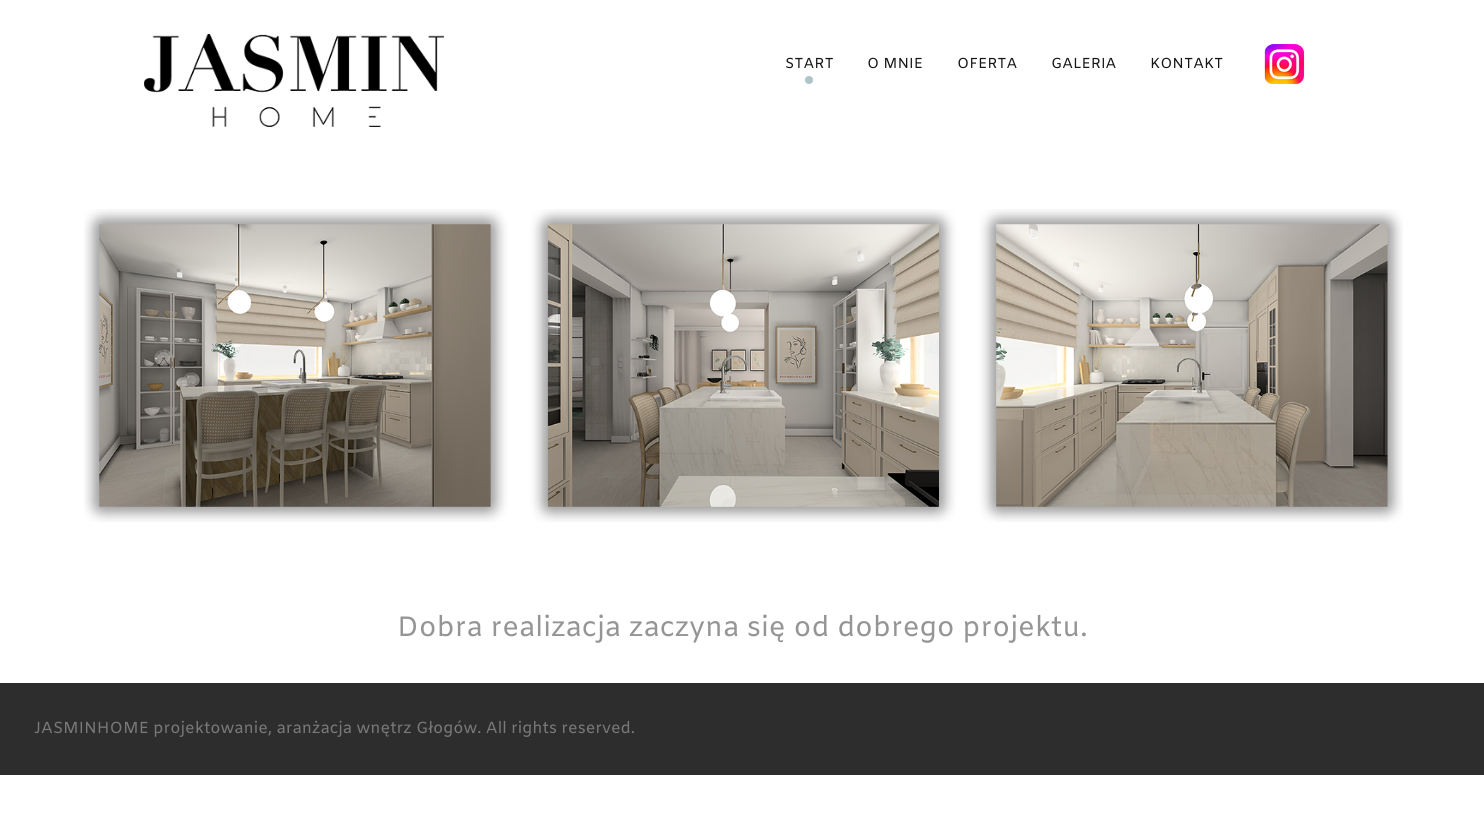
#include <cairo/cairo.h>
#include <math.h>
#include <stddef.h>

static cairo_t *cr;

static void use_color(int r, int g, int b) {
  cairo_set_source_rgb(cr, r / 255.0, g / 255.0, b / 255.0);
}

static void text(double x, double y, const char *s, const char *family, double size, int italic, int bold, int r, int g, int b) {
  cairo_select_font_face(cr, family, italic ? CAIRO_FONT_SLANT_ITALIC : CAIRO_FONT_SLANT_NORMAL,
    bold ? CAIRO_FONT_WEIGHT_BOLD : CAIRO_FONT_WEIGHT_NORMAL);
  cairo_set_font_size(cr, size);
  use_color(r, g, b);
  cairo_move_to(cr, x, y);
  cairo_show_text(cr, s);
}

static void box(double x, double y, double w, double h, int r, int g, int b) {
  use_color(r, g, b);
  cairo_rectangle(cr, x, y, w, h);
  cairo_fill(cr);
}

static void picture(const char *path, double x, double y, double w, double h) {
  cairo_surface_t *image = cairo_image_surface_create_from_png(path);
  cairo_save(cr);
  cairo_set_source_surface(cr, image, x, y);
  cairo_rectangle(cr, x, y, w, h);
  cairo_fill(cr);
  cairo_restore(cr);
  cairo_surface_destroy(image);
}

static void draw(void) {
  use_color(255, 255, 255);
  cairo_paint(cr);
  picture("img_01.png", 144, 34, 300, 93);
  use_color(174, 196, 201);
  cairo_arc(cr, 809, 80, 4, 0, 2 * M_PI);
  cairo_fill(cr);
  picture("img_02.png", 1264, 44, 41, 40);
  picture("img_03.png", 84, 209, 1319, 313);
  box(0, 683, 1484, 92, 45, 45, 45);
  text(785, 68, "START", "Amiko", 14.5, 0, 0, 21, 21, 21);
  text(867, 68, "O MNIE", "Amiko", 14.5, 0, 0, 21, 21, 21);
  text(957, 68, "OFERTA", "Amiko", 14.5, 0, 0, 21, 21, 21);
  text(1051, 68, "GALERIA", "Amiko", 14.5, 0, 0, 21, 21, 21);
  text(1150, 68, "KONTAKT", "Amiko", 14.5, 0, 0, 21, 21, 21);
  text(397, 636, "Dobra realizacja zaczyna się od dobrego projektu.", "Amiko", 28, 0, 0, 149, 149, 149);
  text(34, 733, "JASMINHOME projektowanie, aranżacja wnętrz Głogów. All rights reserved.", "Amiko", 16, 0, 0, 121, 121, 121);
}

int main(void) {
  cairo_surface_t *surface = cairo_image_surface_create(CAIRO_FORMAT_RGB24, 1484, 826);
  cr = cairo_create(surface);
  cairo_font_options_t *options = cairo_font_options_create();
  cairo_font_options_set_hint_metrics(options, CAIRO_HINT_METRICS_OFF);
  cairo_font_options_set_hint_style(options, CAIRO_HINT_STYLE_NONE);
  cairo_set_font_options(cr, options);
  cairo_set_miter_limit(cr, 4);
  draw();
  cairo_surface_write_to_png(surface, "out.png");
  cairo_font_options_destroy(options);
  cairo_destroy(cr);
  cairo_surface_destroy(surface);
  return 0;
}
